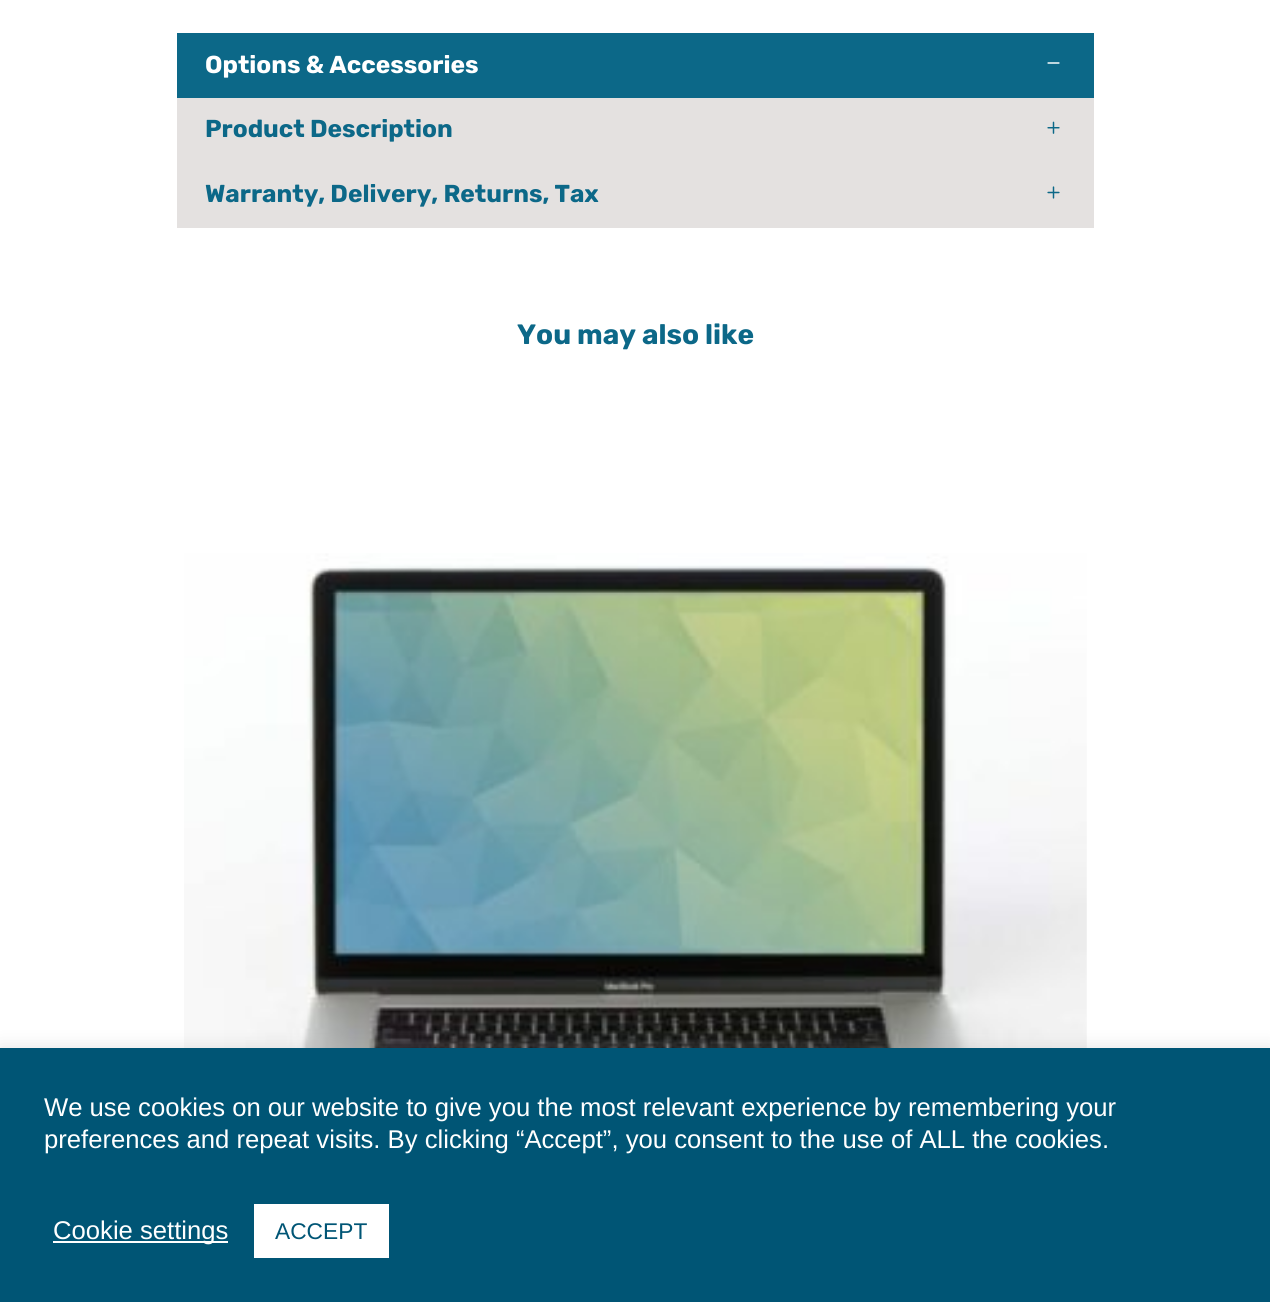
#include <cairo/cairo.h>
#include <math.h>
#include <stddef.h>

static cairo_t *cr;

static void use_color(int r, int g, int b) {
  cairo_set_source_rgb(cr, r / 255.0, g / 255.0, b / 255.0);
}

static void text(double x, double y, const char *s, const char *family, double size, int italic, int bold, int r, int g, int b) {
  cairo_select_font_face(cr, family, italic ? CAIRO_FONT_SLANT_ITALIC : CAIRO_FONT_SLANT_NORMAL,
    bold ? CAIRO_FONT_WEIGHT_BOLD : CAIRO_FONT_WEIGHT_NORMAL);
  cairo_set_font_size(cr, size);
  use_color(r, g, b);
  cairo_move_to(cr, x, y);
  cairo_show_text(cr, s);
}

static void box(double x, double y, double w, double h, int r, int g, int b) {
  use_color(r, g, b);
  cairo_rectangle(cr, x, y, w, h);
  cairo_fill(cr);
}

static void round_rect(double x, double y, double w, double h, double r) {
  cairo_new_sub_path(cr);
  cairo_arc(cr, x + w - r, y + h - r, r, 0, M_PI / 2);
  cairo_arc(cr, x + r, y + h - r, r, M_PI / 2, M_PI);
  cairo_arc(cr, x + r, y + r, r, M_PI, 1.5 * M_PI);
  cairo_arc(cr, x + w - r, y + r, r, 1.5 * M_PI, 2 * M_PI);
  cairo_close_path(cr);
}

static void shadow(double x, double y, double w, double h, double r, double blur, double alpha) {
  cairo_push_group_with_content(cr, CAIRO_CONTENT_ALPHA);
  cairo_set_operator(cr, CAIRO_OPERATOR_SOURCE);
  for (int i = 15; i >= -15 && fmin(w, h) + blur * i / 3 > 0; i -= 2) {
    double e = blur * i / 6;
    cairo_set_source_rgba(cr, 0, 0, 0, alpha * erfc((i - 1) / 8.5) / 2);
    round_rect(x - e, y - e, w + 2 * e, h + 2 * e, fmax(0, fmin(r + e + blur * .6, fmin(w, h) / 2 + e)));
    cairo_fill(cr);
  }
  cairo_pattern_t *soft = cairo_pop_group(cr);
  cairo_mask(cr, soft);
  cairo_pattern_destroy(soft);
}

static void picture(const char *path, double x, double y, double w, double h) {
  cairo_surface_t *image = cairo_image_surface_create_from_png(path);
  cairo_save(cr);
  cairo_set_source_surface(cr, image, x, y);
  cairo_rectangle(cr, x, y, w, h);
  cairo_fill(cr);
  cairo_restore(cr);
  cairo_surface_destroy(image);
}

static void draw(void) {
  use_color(255, 255, 255);
  cairo_paint(cr);
  box(177, 33, 917, 65, 12, 104, 136);
  picture("img_01.png", 1047, 62, 13, 2);
  box(177, 98, 917, 130, 228, 225, 224);
  picture("img_02.png", 1047, 121, 13, 13);
  picture("img_03.png", 1047, 186, 13, 13);
  picture("img_04.png", 184, 553, 903, 495);
  use_color(172, 171, 171);
  shadow(0, 1047, 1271, 253, 0, 9, 0.3);
  box(0, 1048, 1270, 254, 0, 85, 117);
  box(53, 1241, 175, 2, 255, 255, 255);
  box(254, 1204, 135, 54, 255, 255, 255);
  text(205, 73, "Options & Accessories", "Rubik", 24.5, 0, 1, 255, 255, 255);
  text(205, 137, "Product Description", "Rubik", 24.5, 0, 1, 12, 104, 136);
  text(205, 202, "Warranty, Delivery, Returns, Tax", "Rubik", 24.5, 0, 1, 12, 104, 136);
  text(517, 344, "You may also like", "Rubik", 28, 0, 1, 12, 104, 136);
  text(44, 1116, "We use cookies on our website to give you the most relevant experience by remembering your", "Liberation Sans", 25.65, 0, 0, 255, 255, 255);
  text(44, 1148, "preferences and repeat visits. By clicking “Accept”, you consent to the use of ALL the cookies.", "Liberation Sans", 25.65, 0, 0, 255, 255, 255);
  text(53, 1239, "Cookie settings", "Liberation Sans", 25.65, 0, 0, 255, 255, 255);
  text(275, 1239, "ACCEPT", "Liberation Sans", 22.75, 0, 0, 0, 85, 117);
}

int main(void) {
  cairo_surface_t *surface = cairo_image_surface_create(CAIRO_FORMAT_RGB24, 1270, 1302);
  cr = cairo_create(surface);
  cairo_font_options_t *options = cairo_font_options_create();
  cairo_font_options_set_hint_metrics(options, CAIRO_HINT_METRICS_OFF);
  cairo_font_options_set_hint_style(options, CAIRO_HINT_STYLE_NONE);
  cairo_set_font_options(cr, options);
  cairo_set_miter_limit(cr, 4);
  draw();
  cairo_surface_write_to_png(surface, "out.png");
  cairo_font_options_destroy(options);
  cairo_destroy(cr);
  cairo_surface_destroy(surface);
  return 0;
}
